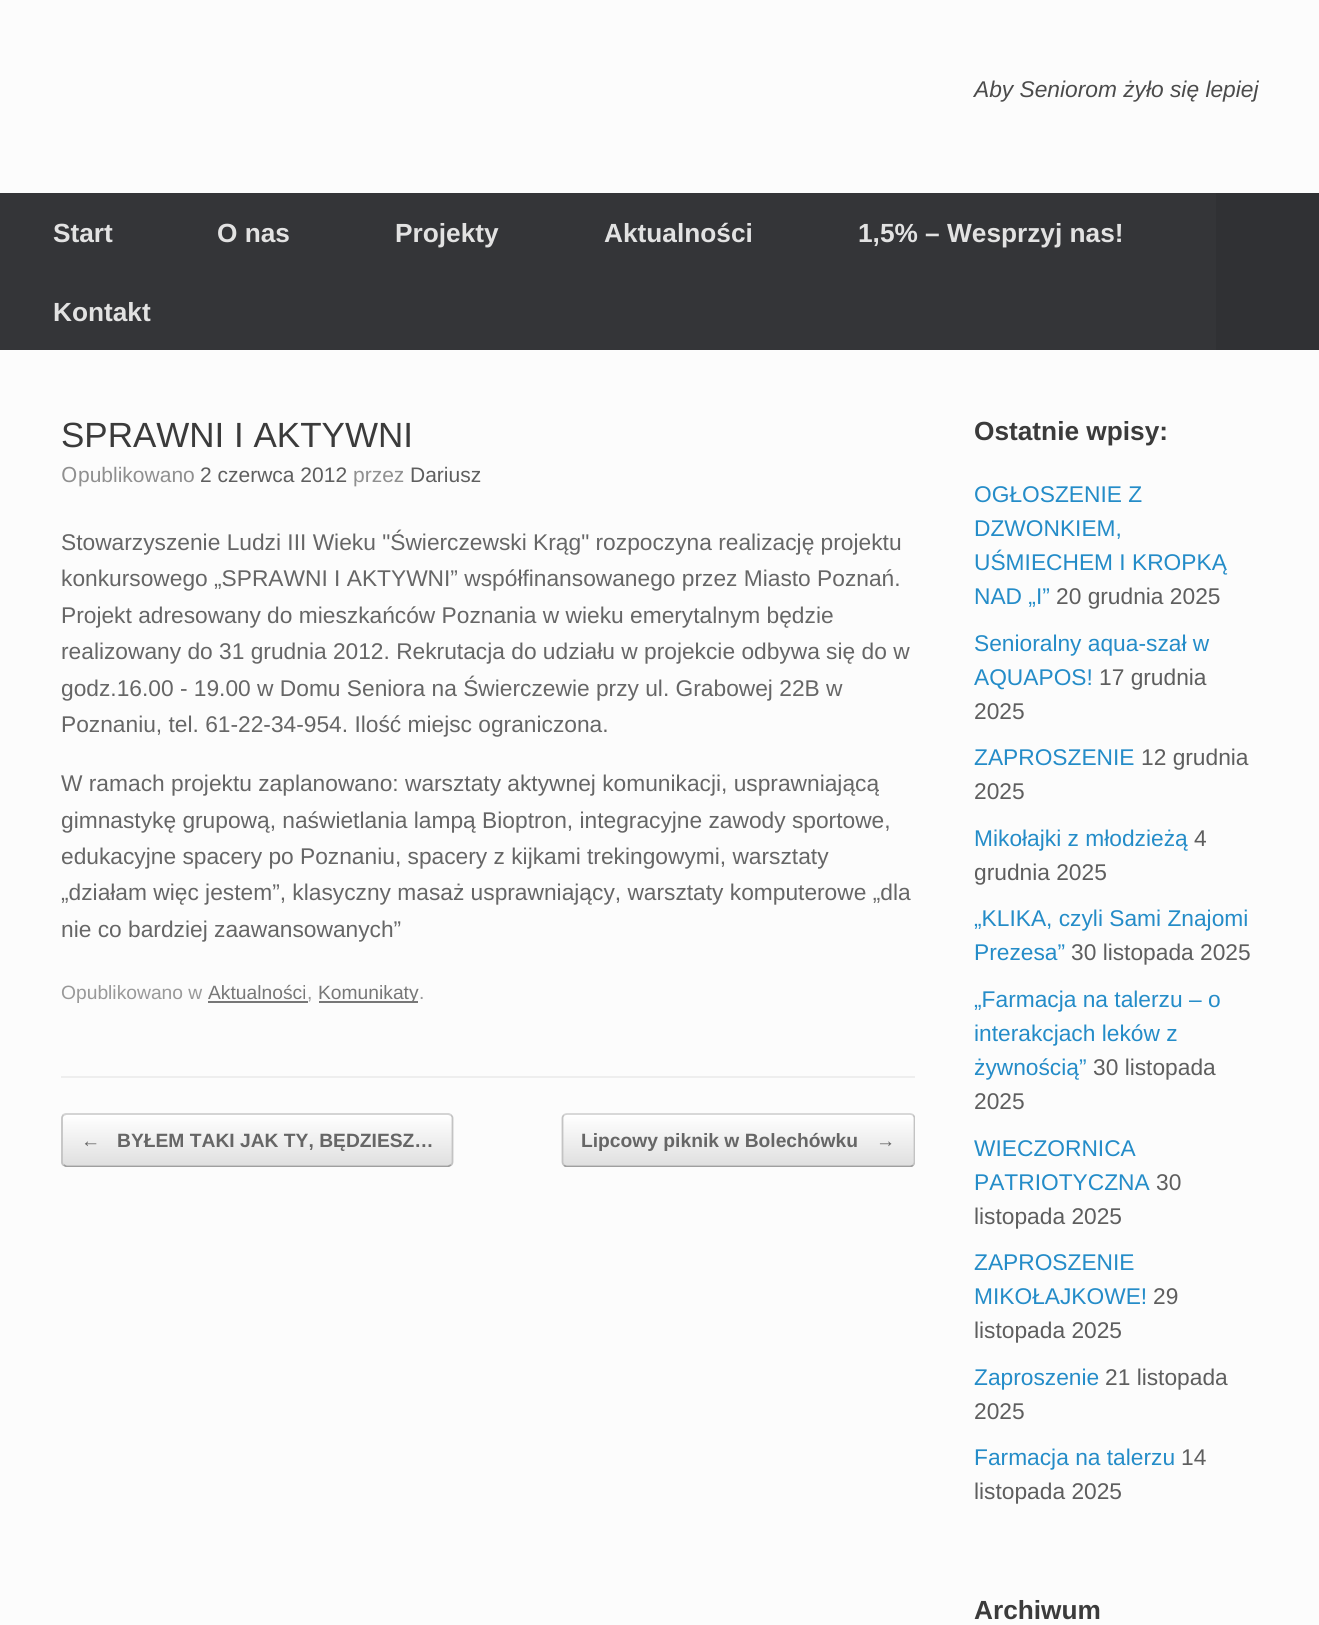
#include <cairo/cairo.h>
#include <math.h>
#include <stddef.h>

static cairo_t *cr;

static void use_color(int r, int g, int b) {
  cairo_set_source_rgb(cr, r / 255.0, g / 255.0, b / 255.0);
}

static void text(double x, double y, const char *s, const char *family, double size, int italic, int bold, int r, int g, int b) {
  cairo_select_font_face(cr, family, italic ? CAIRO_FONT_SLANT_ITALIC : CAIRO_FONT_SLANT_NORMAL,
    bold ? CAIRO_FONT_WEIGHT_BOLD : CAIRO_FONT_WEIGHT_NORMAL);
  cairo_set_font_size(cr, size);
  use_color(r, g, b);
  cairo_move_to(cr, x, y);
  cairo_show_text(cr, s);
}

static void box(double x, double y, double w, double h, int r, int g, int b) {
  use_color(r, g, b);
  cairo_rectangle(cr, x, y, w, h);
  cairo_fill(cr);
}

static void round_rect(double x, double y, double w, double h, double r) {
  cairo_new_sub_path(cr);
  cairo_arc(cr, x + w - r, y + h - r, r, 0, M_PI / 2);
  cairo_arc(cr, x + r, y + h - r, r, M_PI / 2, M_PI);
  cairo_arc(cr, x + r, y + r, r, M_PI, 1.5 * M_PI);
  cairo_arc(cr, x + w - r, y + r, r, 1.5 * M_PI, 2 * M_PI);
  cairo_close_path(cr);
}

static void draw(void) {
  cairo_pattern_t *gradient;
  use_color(252, 252, 252);
  cairo_paint(cr);
  box(0, 193, 1216, 157, 52, 53, 56);
  box(1216, 193, 103, 157, 48, 49, 52);
  box(61, 1076, 854, 2, 238, 238, 238);
  box(208, 1001, 100, 2, 119, 119, 119);
  box(319, 1001, 99, 2, 119, 119, 119);
  cairo_save(cr);
  round_rect(61, 1113, 392, 54, 5);
  cairo_clip(cr);
  gradient = cairo_pattern_create_linear(63, 1115, 63, 1064);
  cairo_pattern_add_color_stop_rgba(gradient, 0, 0.875, 0.875, 0.875, 1);
  cairo_pattern_add_color_stop_rgba(gradient, 1, 1, 1, 1, 1);
  cairo_set_source(cr, gradient);
  cairo_pattern_destroy(gradient);
  cairo_rectangle(cr, 61, 1113, 392, 2);
  cairo_fill(cr);
  gradient = cairo_pattern_create_linear(63, 1166, 63, 1115);
  cairo_pattern_add_color_stop_rgba(gradient, 0, 0.875, 0.875, 0.875, 1);
  cairo_pattern_add_color_stop_rgba(gradient, 1, 1, 1, 1, 1);
  cairo_set_source(cr, gradient);
  cairo_pattern_destroy(gradient);
  cairo_rectangle(cr, 61, 1115, 392, 51);
  cairo_fill(cr);
  gradient = cairo_pattern_create_linear(63, 1216, 63, 1166);
  cairo_pattern_add_color_stop_rgba(gradient, 0, 0.875, 0.875, 0.875, 1);
  cairo_pattern_add_color_stop_rgba(gradient, 1, 1, 1, 1, 1);
  cairo_set_source(cr, gradient);
  cairo_pattern_destroy(gradient);
  cairo_rectangle(cr, 61, 1166, 392, 1);
  cairo_fill(cr);
  cairo_restore(cr);
  cairo_new_path(cr);
  cairo_move_to(cr, 63.5, 1115);
  cairo_line_to(cr, 66.5, 1114);
  cairo_line_to(cr, 448, 1114);
  cairo_line_to(cr, 451, 1115);
  use_color(210, 210, 210);
  cairo_set_line_width(cr, 1.8);
  cairo_stroke(cr);
  cairo_new_path(cr);
  cairo_move_to(cr, 451, 1115);
  cairo_curve_to(cr, 452, 1116, 452.5, 1117, 452.5, 1118);
  cairo_line_to(cr, 452.5, 1162);
  cairo_curve_to(cr, 452.5, 1163, 452, 1164.5, 451, 1165);
  use_color(195, 195, 195);
  cairo_stroke(cr);
  cairo_save(cr);
  cairo_rectangle(cr, 61, 1113, 854, 54);
  cairo_clip(cr);
  cairo_new_path(cr);
  cairo_move_to(cr, 451, 1165);
  cairo_line_to(cr, 448, 1166.5);
  cairo_line_to(cr, 66.5, 1166.5);
  cairo_line_to(cr, 63.5, 1165);
  use_color(159, 159, 159);
  cairo_stroke(cr);
  cairo_restore(cr);
  cairo_new_path(cr);
  cairo_move_to(cr, 63.5, 1165);
  cairo_curve_to(cr, 62.5, 1164.5, 62, 1163, 62, 1162);
  cairo_line_to(cr, 62, 1118);
  cairo_curve_to(cr, 62, 1117, 62.5, 1116, 63.5, 1115);
  cairo_stroke(cr);
  cairo_save(cr);
  round_rect(562, 1113, 353, 54, 5);
  cairo_clip(cr);
  gradient = cairo_pattern_create_linear(564, 1166, 564, 1115);
  cairo_pattern_add_color_stop_rgba(gradient, 0, 0.875, 0.875, 0.875, 1);
  cairo_pattern_add_color_stop_rgba(gradient, 1, 1, 1, 1, 1);
  cairo_set_source(cr, gradient);
  cairo_pattern_destroy(gradient);
  cairo_rectangle(cr, 562, 1115, 353, 51);
  cairo_fill(cr);
  cairo_restore(cr);
  cairo_new_path(cr);
  cairo_move_to(cr, 564, 1115);
  cairo_curve_to(cr, 564.5, 1114.5, 566, 1114, 567, 1114);
  cairo_line_to(cr, 910, 1114);
  cairo_curve_to(cr, 911, 1114, 912.5, 1114.5, 913, 1115);
  use_color(210, 210, 210);
  cairo_stroke(cr);
  cairo_save(cr);
  cairo_rectangle(cr, 61, 1113, 854, 54);
  cairo_clip(cr);
  cairo_new_path(cr);
  cairo_move_to(cr, 913, 1115);
  cairo_curve_to(cr, 914, 1116, 914.5, 1117, 914.5, 1118);
  cairo_line_to(cr, 914.5, 1162);
  cairo_curve_to(cr, 914.5, 1163, 914, 1164.5, 913, 1165);
  use_color(195, 195, 195);
  cairo_stroke(cr);
  cairo_new_path(cr);
  cairo_move_to(cr, 913, 1165);
  cairo_curve_to(cr, 912.5, 1166, 911, 1166.5, 910, 1166.5);
  cairo_line_to(cr, 567, 1166.5);
  cairo_curve_to(cr, 566, 1166.5, 564.5, 1166, 564, 1165);
  use_color(159, 159, 159);
  cairo_stroke(cr);
  cairo_restore(cr);
  cairo_new_path(cr);
  cairo_move_to(cr, 564, 1165);
  cairo_curve_to(cr, 563, 1164.5, 562.5, 1163, 562.5, 1162);
  cairo_line_to(cr, 562.5, 1118);
  cairo_curve_to(cr, 562.5, 1117, 563, 1116, 564, 1115);
  use_color(195, 195, 195);
  cairo_stroke(cr);
  text(974, 97, "Aby Seniorom żyło się lepiej", "Liberation Sans", 22.75, 1, 0, 75, 75, 75);
  text(53, 242, "Start", "Liberation Sans", 26.25, 0, 1, 226, 226, 226);
  text(217, 242, "O nas", "Liberation Sans", 26.25, 0, 1, 226, 226, 226);
  text(395, 242, "Projekty", "Liberation Sans", 26.25, 0, 1, 226, 226, 226);
  text(604, 242, "Aktualności", "Liberation Sans", 26.25, 0, 1, 226, 226, 226);
  text(858, 242, "1,5% – Wesprzyj nas!", "Liberation Sans", 26.25, 0, 1, 226, 226, 226);
  text(53, 321, "Kontakt", "Liberation Sans", 26.25, 0, 1, 226, 226, 226);
  text(61, 447, "SPRAWNI I AKTYWNI", "Liberation Sans", 35, 0, 0, 59, 59, 59);
  text(61, 482, "O", "Noto Sans", 21, 0, 0, 143, 143, 143);
  text(78, 482, "publikowano", "Liberation Sans", 21, 0, 0, 143, 143, 143);
  text(200, 482, "2 czerwca 2012", "Liberation Sans", 21, 0, 0, 94, 94, 94);
  text(353, 482, "przez", "Liberation Sans", 21, 0, 0, 143, 143, 143);
  text(410, 482, "Dariusz", "Liberation Sans", 21, 0, 0, 94, 94, 94);
  text(61, 550, "Stowarzyszenie Ludzi III Wieku \"Świerczewski Krąg\" rozpoczyna realizację projektu", "Liberation Sans", 22.75, 0, 0, 102, 102, 102);
  text(61, 586, "konkursowego „SPRAWNI I AKTYWNI” współfinansowanego przez Miasto Poznań.", "Liberation Sans", 22.75, 0, 0, 102, 102, 102);
  text(61, 623, "Projekt adresowany do mieszkańców Poznania w wieku emerytalnym będzie", "Liberation Sans", 22.75, 0, 0, 102, 102, 102);
  text(61, 659, "realizowany do 31 grudnia 2012. Rekrutacja do udziału w projekcie odbywa się do w", "Liberation Sans", 22.75, 0, 0, 102, 102, 102);
  text(61, 696, "godz.16.00 - 19.00 w Domu Seniora na Świerczewie przy ul. Grabowej 22B w", "Liberation Sans", 22.75, 0, 0, 102, 102, 102);
  text(61, 732, "Poznaniu, tel. 61-22-34-954. Ilość miejsc ograniczona.", "Liberation Sans", 22.75, 0, 0, 102, 102, 102);
  text(61, 791, "W ramach projektu zaplanowano: warsztaty aktywnej komunikacji, usprawniającą", "Liberation Sans", 22.75, 0, 0, 102, 102, 102);
  text(61, 828, "gimnastykę grupową, naświetlania lampą Bioptron, integracyjne zawody sportowe,", "Liberation Sans", 22.75, 0, 0, 102, 102, 102);
  text(61, 864, "edukacyjne spacery po Poznaniu, spacery z kijkami trekingowymi, warsztaty", "Liberation Sans", 22.75, 0, 0, 102, 102, 102);
  text(61, 900, "„działam więc jestem”, klasyczny masaż usprawniający, warsztaty komputerowe „dla", "Liberation Sans", 22.75, 0, 0, 102, 102, 102);
  text(61, 937, "nie co bardziej zaawansowanych”", "Liberation Sans", 22.75, 0, 0, 102, 102, 102);
  text(61, 999, "Opublikowano w", "Liberation Sans", 19.25, 0, 0, 153, 153, 153);
  text(208, 999, "Aktualności", "Liberation Sans", 19.25, 0, 0, 119, 119, 119);
  text(307, 999, ",", "Liberation Sans", 19.25, 0, 0, 153, 153, 153);
  text(318, 999, "Komunikaty", "Liberation Sans", 19.25, 0, 0, 119, 119, 119);
  text(419, 999, ".", "Liberation Sans", 19.25, 0, 0, 153, 153, 153);
  text(81, 1147, "←", "Liberation Sans", 19.25, 0, 1, 102, 102, 102);
  text(117, 1147, "BYŁEM TAKI JAK TY, BĘDZIESZ…", "Liberation Sans", 19.25, 0, 1, 102, 102, 102);
  text(581, 1147, "Lipcowy piknik w Bolechówku", "Liberation Sans", 19.25, 0, 1, 102, 102, 102);
  text(876, 1147, "→", "Liberation Sans", 19.25, 0, 1, 102, 102, 102);
  text(974, 440, "Ostatnie wpisy:", "Liberation Sans", 26.25, 0, 1, 59, 59, 59);
  text(974, 502, "OGŁOSZENIE Z", "Liberation Sans", 22.75, 0, 0, 36, 140, 200);
  text(974, 536, "DZWONKIEM,", "Liberation Sans", 22.75, 0, 0, 36, 140, 200);
  text(974, 570, "UŚMIECHEM I KROPKĄ", "Liberation Sans", 22.75, 0, 0, 36, 140, 200);
  text(974, 604, "NAD „I”", "Liberation Sans", 22.75, 0, 0, 36, 140, 200);
  text(1056, 604, "20 grudnia 2025", "Liberation Sans", 22.75, 0, 0, 94, 94, 94);
  text(974, 651, "Senioralny aqua-szał w", "Liberation Sans", 22.75, 0, 0, 36, 140, 200);
  text(974, 685, "AQUAPOS!", "Liberation Sans", 22.75, 0, 0, 36, 140, 200);
  text(1099, 685, "17 grudnia", "Liberation Sans", 22.75, 0, 0, 94, 94, 94);
  text(974, 719, "2025", "Liberation Sans", 22.75, 0, 0, 94, 94, 94);
  text(974, 765, "ZAPROSZENIE", "Liberation Sans", 22.75, 0, 0, 36, 140, 200);
  text(1141, 765, "12 grudnia", "Liberation Sans", 22.75, 0, 0, 94, 94, 94);
  text(974, 799, "2025", "Liberation Sans", 22.75, 0, 0, 94, 94, 94);
  text(974, 846, "Mikołajki z młodzieżą", "Liberation Sans", 22.75, 0, 0, 36, 140, 200);
  text(1194, 846, "4", "Liberation Sans", 22.75, 0, 0, 94, 94, 94);
  text(974, 880, "grudnia 2025", "Liberation Sans", 22.75, 0, 0, 94, 94, 94);
  text(974, 926, "„KLIKA, czyli Sami Znajomi", "Liberation Sans", 22.75, 0, 0, 36, 140, 200);
  text(974, 960, "Prezesa”", "Liberation Sans", 22.75, 0, 0, 36, 140, 200);
  text(1071, 960, "30 listopada 2025", "Liberation Sans", 22.75, 0, 0, 94, 94, 94);
  text(974, 1007, "„Farmacja na talerzu – o", "Liberation Sans", 22.75, 0, 0, 36, 140, 200);
  text(974, 1041, "interakcjach leków z", "Liberation Sans", 22.75, 0, 0, 36, 140, 200);
  text(974, 1075, "żywnością”", "Liberation Sans", 22.75, 0, 0, 36, 140, 200);
  text(1093, 1075, "30 listopada", "Liberation Sans", 22.75, 0, 0, 94, 94, 94);
  text(974, 1109, "2025", "Liberation Sans", 22.75, 0, 0, 94, 94, 94);
  text(974, 1156, "WIECZORNICA", "Liberation Sans", 22.75, 0, 0, 36, 140, 200);
  text(974, 1190, "PATRIOTYCZNA", "Liberation Sans", 22.75, 0, 0, 36, 140, 200);
  text(1156, 1190, "30", "Liberation Sans", 22.75, 0, 0, 94, 94, 94);
  text(974, 1224, "listopada 2025", "Liberation Sans", 22.75, 0, 0, 94, 94, 94);
  text(974, 1270, "ZAPROSZENIE", "Liberation Sans", 22.75, 0, 0, 36, 140, 200);
  text(974, 1304, "MIKOŁAJKOWE!", "Liberation Sans", 22.75, 0, 0, 36, 140, 200);
  text(1153, 1304, "29", "Liberation Sans", 22.75, 0, 0, 94, 94, 94);
  text(974, 1338, "listopada 2025", "Liberation Sans", 22.75, 0, 0, 94, 94, 94);
  text(974, 1385, "Zaproszenie", "Liberation Sans", 22.75, 0, 0, 36, 140, 200);
  text(1105, 1385, "21 listopada", "Liberation Sans", 22.75, 0, 0, 94, 94, 94);
  text(974, 1419, "2025", "Liberation Sans", 22.75, 0, 0, 94, 94, 94);
  text(974, 1465, "Farmacja na talerzu", "Liberation Sans", 22.75, 0, 0, 36, 140, 200);
  text(1181, 1465, "14", "Liberation Sans", 22.75, 0, 0, 94, 94, 94);
  text(974, 1499, "listopada 2025", "Liberation Sans", 22.75, 0, 0, 94, 94, 94);
  text(974, 1619, "Archiwum", "Liberation Sans", 26.25, 0, 1, 59, 59, 59);
}

int main(void) {
  cairo_surface_t *surface = cairo_image_surface_create(CAIRO_FORMAT_RGB24, 1319, 1625);
  cr = cairo_create(surface);
  cairo_font_options_t *options = cairo_font_options_create();
  cairo_font_options_set_hint_metrics(options, CAIRO_HINT_METRICS_OFF);
  cairo_font_options_set_hint_style(options, CAIRO_HINT_STYLE_NONE);
  cairo_set_font_options(cr, options);
  cairo_set_miter_limit(cr, 4);
  draw();
  cairo_surface_write_to_png(surface, "out.png");
  cairo_font_options_destroy(options);
  cairo_destroy(cr);
  cairo_surface_destroy(surface);
  return 0;
}
